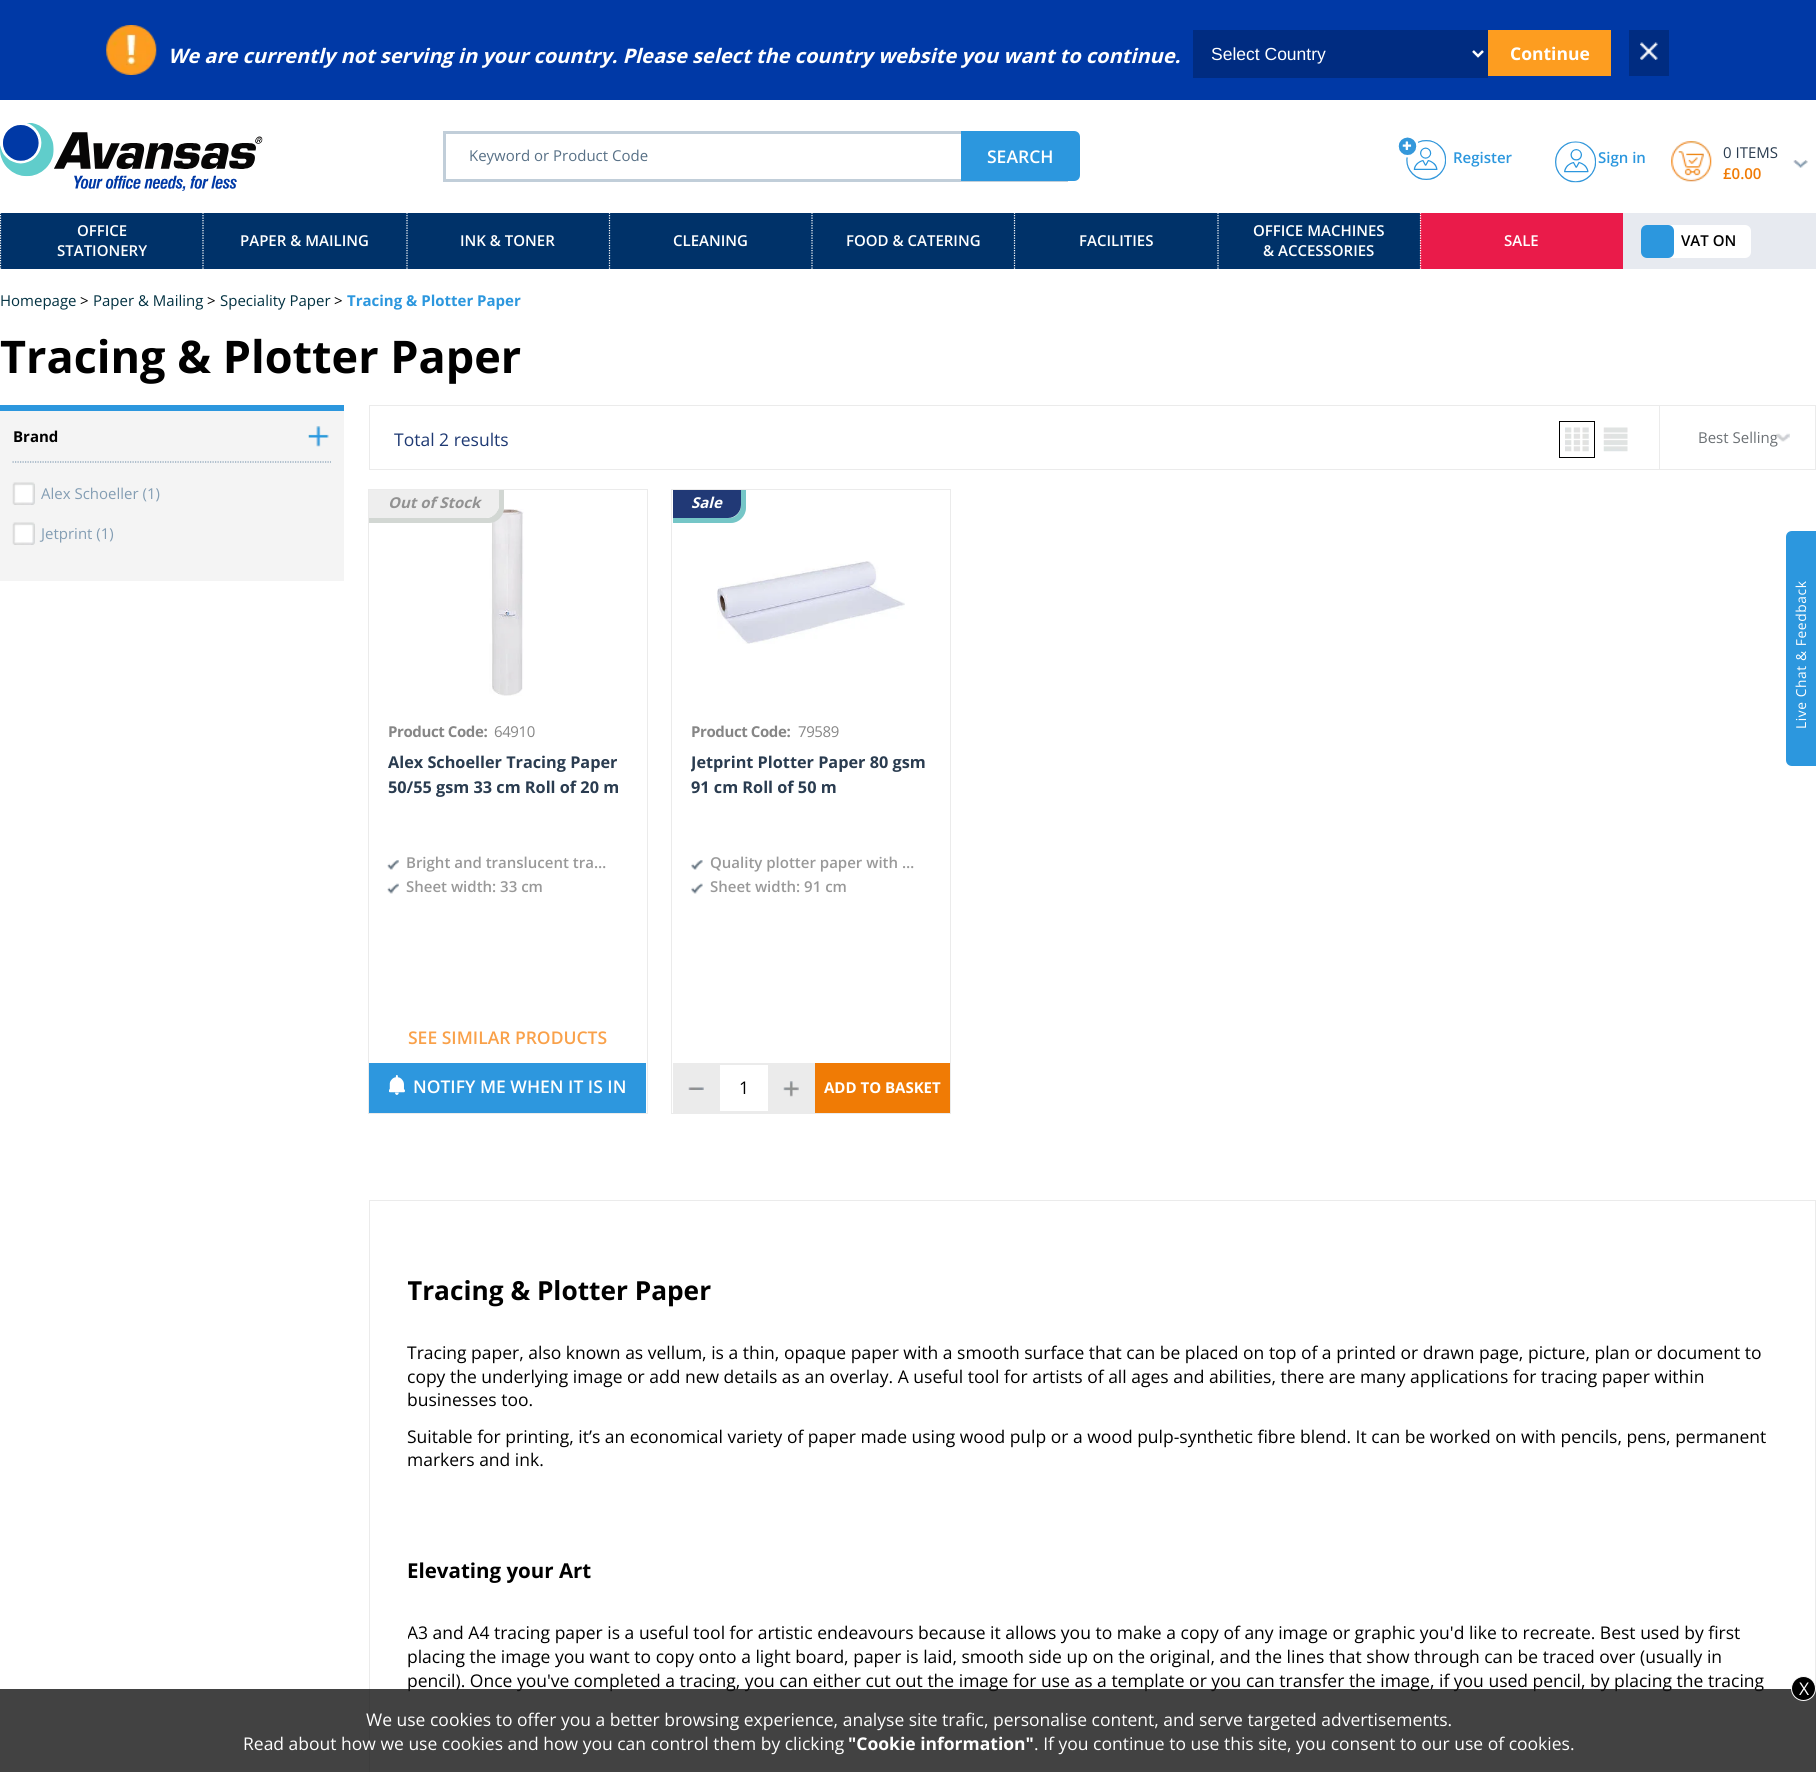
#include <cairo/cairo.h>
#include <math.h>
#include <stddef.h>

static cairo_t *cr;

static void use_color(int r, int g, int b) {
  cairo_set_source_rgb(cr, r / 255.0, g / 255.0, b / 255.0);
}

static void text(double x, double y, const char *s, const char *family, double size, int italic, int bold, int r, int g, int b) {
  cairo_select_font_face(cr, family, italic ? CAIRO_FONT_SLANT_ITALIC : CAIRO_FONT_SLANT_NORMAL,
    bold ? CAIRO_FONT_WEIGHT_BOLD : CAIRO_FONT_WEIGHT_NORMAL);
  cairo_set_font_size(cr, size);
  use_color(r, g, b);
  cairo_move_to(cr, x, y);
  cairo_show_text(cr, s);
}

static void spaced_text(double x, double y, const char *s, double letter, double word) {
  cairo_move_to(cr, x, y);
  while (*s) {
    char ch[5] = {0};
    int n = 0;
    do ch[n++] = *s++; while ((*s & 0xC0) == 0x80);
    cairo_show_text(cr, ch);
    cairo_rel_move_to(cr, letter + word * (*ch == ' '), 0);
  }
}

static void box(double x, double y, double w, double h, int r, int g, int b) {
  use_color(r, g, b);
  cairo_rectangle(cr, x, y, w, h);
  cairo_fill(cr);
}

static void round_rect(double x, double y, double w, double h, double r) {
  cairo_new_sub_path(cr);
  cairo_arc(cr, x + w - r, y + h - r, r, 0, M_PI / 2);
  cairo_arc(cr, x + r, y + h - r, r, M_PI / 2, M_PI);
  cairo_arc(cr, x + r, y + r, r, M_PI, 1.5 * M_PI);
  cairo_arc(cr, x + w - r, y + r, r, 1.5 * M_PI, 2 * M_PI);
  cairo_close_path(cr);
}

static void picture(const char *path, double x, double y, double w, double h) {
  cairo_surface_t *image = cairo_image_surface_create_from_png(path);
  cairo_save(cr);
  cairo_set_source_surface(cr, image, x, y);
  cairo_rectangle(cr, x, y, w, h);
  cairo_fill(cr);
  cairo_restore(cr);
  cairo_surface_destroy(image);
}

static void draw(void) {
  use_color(255, 255, 255);
  cairo_paint(cr);
  box(0, 0, 1816, 100, 0, 57, 166);
  picture("img_01.png", 106, 25, 51, 50);
  box(1193, 30, 295, 48, 0, 44, 129);
  cairo_new_path(cr);
  cairo_move_to(cr, 1473, 51);
  cairo_line_to(cr, 1478, 56);
  cairo_line_to(cr, 1483, 51);
  use_color(255, 255, 255);
  cairo_set_line_width(cr, 2.5);
  cairo_stroke(cr);
  box(1488, 30, 123, 46, 253, 157, 32);
  box(1629, 30, 40, 46, 0, 44, 129);
  picture("img_02.png", 1640, 42, 18, 18);
  picture("img_03.png", 0, 123, 263, 68);
  box(443, 131, 518, 3, 193, 206, 217);
  box(443, 179, 625, 3, 193, 206, 217);
  box(443, 131, 3, 50, 193, 206, 217);
  use_color(44, 151, 222);
  cairo_new_path(cr);
  cairo_move_to(cr, 961, 131);
  cairo_line_to(cr, 1074, 131);
  cairo_curve_to(cr, 1077.5, 131, 1080, 133.5, 1080, 137);
  cairo_line_to(cr, 1080, 175);
  cairo_curve_to(cr, 1080, 178.5, 1077.5, 181, 1074, 181);
  cairo_line_to(cr, 961, 181);
  cairo_close_path(cr);
  cairo_fill(cr);
  picture("img_04.png", 1398, 137, 48, 43);
  picture("img_05.png", 1555, 141, 41, 42);
  picture("img_06.png", 1671, 141, 41, 41);
  picture("img_07.png", 1793, 160, 15, 8);
  box(0, 213, 1420, 56, 0, 50, 105);
  cairo_new_path(cr);
  cairo_move_to(cr, 0.5, 212.5);
  cairo_line_to(cr, 0.5, 269);
  use_color(255, 255, 255);
  cairo_set_line_width(cr, 1.2);
  cairo_set_dash(cr, (double[]){1.25, 1.25}, 2, 0);
  cairo_stroke(cr);
  cairo_new_path(cr);
  cairo_move_to(cr, 203, 212.5);
  cairo_line_to(cr, 203, 269);
  cairo_stroke(cr);
  cairo_new_path(cr);
  cairo_move_to(cr, 407, 212.5);
  cairo_line_to(cr, 407, 269);
  cairo_stroke(cr);
  cairo_new_path(cr);
  cairo_move_to(cr, 609.5, 212.5);
  cairo_line_to(cr, 609.5, 269);
  cairo_stroke(cr);
  cairo_new_path(cr);
  cairo_move_to(cr, 812, 212.5);
  cairo_line_to(cr, 812, 269);
  cairo_stroke(cr);
  cairo_new_path(cr);
  cairo_move_to(cr, 1014.5, 212.5);
  cairo_line_to(cr, 1014.5, 269);
  cairo_stroke(cr);
  cairo_new_path(cr);
  cairo_move_to(cr, 1218, 212.5);
  cairo_line_to(cr, 1218, 269);
  cairo_stroke(cr);
  box(1420, 213, 203, 56, 234, 27, 74);
  cairo_new_path(cr);
  cairo_move_to(cr, 1420.5, 212.5);
  cairo_line_to(cr, 1420.5, 269);
  use_color(255, 255, 255);
  cairo_stroke(cr);
  box(1623, 213, 193, 56, 231, 234, 240);
  use_color(255, 255, 255);
  round_rect(1641, 225, 110, 33, 6);
  cairo_fill(cr);
  use_color(44, 151, 222);
  round_rect(1641, 225, 33, 33, 6);
  cairo_fill(cr);
  cairo_new_path(cr);
  cairo_move_to(cr, 1792, 531);
  cairo_line_to(cr, 1816, 531);
  cairo_line_to(cr, 1816, 766);
  cairo_line_to(cr, 1792, 766);
  cairo_curve_to(cr, 1788.5, 766, 1786, 763.5, 1786, 760);
  cairo_line_to(cr, 1786, 537);
  cairo_curve_to(cr, 1786, 533.5, 1788.5, 531, 1792, 531);
  cairo_close_path(cr);
  cairo_fill(cr);
  box(0, 411, 344, 170, 244, 244, 244);
  box(0, 405, 344, 6, 44, 151, 222);
  picture("img_08.png", 308, 426, 21, 21);
  cairo_new_path(cr);
  cairo_move_to(cr, 12.5, 462);
  cairo_line_to(cr, 331, 462);
  use_color(131, 157, 179);
  cairo_stroke(cr);
  picture("img_09.png", 12, 482, 23, 23);
  picture("img_09.png", 12, 522, 23, 23);
  cairo_rectangle(cr, 369.5, 405.5, 1446, 64);
  use_color(235, 235, 235);
  cairo_set_line_width(cr, 1);
  cairo_set_dash(cr, NULL, 0, 0);
  cairo_stroke(cr);
  cairo_rectangle(cr, 1559.5, 421.5, 35, 36);
  use_color(0, 0, 0);
  cairo_stroke(cr);
  picture("img_10.png", 1565, 427, 24, 25);
  picture("img_11.png", 1603, 427, 25, 25);
  box(1659, 406, 1, 63, 235, 235, 235);
  cairo_rectangle(cr, 368.5, 489.5, 279, 624);
  cairo_stroke(cr);
  picture("img_13.png", 489, 509, 35, 187);
  use_color(210, 215, 211);
  cairo_new_path(cr);
  cairo_move_to(cr, 369, 518);
  cairo_line_to(cr, 369, 523);
  cairo_line_to(cr, 489, 523);
  cairo_curve_to(cr, 497, 523, 504, 516, 504, 508);
  cairo_line_to(cr, 504, 490);
  cairo_line_to(cr, 499, 490);
  cairo_line_to(cr, 499, 505);
  cairo_curve_to(cr, 499, 512, 493, 518, 486, 518);
  cairo_close_path(cr);
  cairo_fill(cr);
  use_color(238, 238, 238);
  cairo_new_path(cr);
  cairo_move_to(cr, 369, 490);
  cairo_line_to(cr, 499, 490);
  cairo_line_to(cr, 499, 505);
  cairo_curve_to(cr, 499, 512, 493, 518, 486, 518);
  cairo_line_to(cr, 369, 518);
  cairo_close_path(cr);
  cairo_fill(cr);
  picture("img_14.png", 387, 860, 12, 10);
  picture("img_15.png", 387, 883, 12, 11);
  box(369, 1063, 277, 50, 45, 151, 222);
  picture("img_16.png", 389, 1075, 16, 20);
  cairo_rectangle(cr, 671.5, 489.5, 279, 624);
  use_color(235, 235, 235);
  cairo_stroke(cr);
  use_color(117, 198, 199);
  cairo_new_path(cr);
  cairo_move_to(cr, 673, 518);
  cairo_line_to(cr, 673, 523);
  cairo_line_to(cr, 731, 523);
  cairo_curve_to(cr, 739, 523, 746, 516, 746, 508);
  cairo_line_to(cr, 746, 490);
  cairo_line_to(cr, 741, 490);
  cairo_line_to(cr, 741, 505);
  cairo_curve_to(cr, 741, 512, 736, 518, 729, 518);
  cairo_close_path(cr);
  cairo_fill(cr);
  use_color(33, 57, 118);
  cairo_new_path(cr);
  cairo_move_to(cr, 673, 490);
  cairo_line_to(cr, 741, 490);
  cairo_line_to(cr, 741, 505);
  cairo_curve_to(cr, 741, 512, 735, 518, 728, 518);
  cairo_line_to(cr, 673, 518);
  cairo_close_path(cr);
  cairo_fill(cr);
  picture("img_17.png", 717, 561, 188, 83);
  picture("img_18.png", 691, 860, 12, 10);
  picture("img_19.png", 691, 883, 12, 11);
  box(673, 1063, 142, 50, 235, 235, 235);
  picture("img_20.png", 688, 1087, 16, 3);
  box(720, 1065, 48, 46, 255, 255, 255);
  picture("img_21.png", 783, 1081, 16, 16);
  box(815, 1063, 135, 50, 240, 123, 5);
  cairo_rectangle(cr, 369.5, 1200.5, 1446, 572);
  use_color(235, 235, 235);
  cairo_stroke(cr);
  text(168, 63, "We are currently not serving in your country. Please select the country website you want to continue.", "Open Sans", 20, 1, 1, 255, 255, 255);
  text(1211, 60, "Select Country", "Liberation Sans", 17.5, 0, 0, 255, 255, 255);
  text(1510, 60, "Continue", "Open Sans", 17.5, 0, 1, 255, 255, 255);
  text(469, 161, "Keyword or Product Code", "Open Sans", 15, 0, 0, 87, 112, 134);
  text(987, 163, "SEARCH", "Open Sans SemiBold", 17.5, 0, 0, 255, 255, 255);
  text(1453, 163, "Register", "Open Sans SemiBold", 15, 0, 0, 44, 151, 222);
  text(1598, 163, "Sign in", "Open Sans SemiBold", 15, 0, 0, 44, 151, 222);
  text(1723, 158, "0 ITEMS", "Open Sans", 15, 0, 0, 42, 60, 80);
  text(1723, 179, "£0.00", "Open Sans SemiBold", 15, 0, 0, 240, 123, 5);
  text(77, 236, "OFFICE", "Open Sans SemiBold", 15, 0, 0, 255, 255, 255);
  text(57, 256, "STATIONERY", "Open Sans SemiBold", 15, 0, 0, 255, 255, 255);
  text(240, 246, "PAPER & MAILING", "Open Sans SemiBold", 15, 0, 0, 255, 255, 255);
  text(460, 246, "INK & TONER", "Open Sans SemiBold", 15, 0, 0, 255, 255, 255);
  text(673, 246, "CLEANING", "Open Sans SemiBold", 15, 0, 0, 255, 255, 255);
  text(846, 246, "FOOD & CATERING", "Open Sans SemiBold", 15, 0, 0, 255, 255, 255);
  text(1079, 246, "FACILITIES", "Open Sans SemiBold", 15, 0, 0, 255, 255, 255);
  text(1253, 236, "OFFICE MACHINES", "Open Sans SemiBold", 15, 0, 0, 255, 255, 255);
  text(1263, 256, "& ACCESSORIES", "Open Sans SemiBold", 15, 0, 0, 255, 255, 255);
  text(1504, 246, "SALE", "Open Sans SemiBold", 15, 0, 0, 255, 255, 255);
  text(1681, 246, "VAT ON", "Open Sans SemiBold", 15, 0, 0, 0, 0, 0);
  cairo_select_font_face(cr, "Open Sans", CAIRO_FONT_SLANT_NORMAL, CAIRO_FONT_WEIGHT_NORMAL);
  cairo_set_font_size(cr, 13.75);
  use_color(255, 255, 255);
  cairo_save(cr);
  cairo_translate(cr, 1806, 729);
  cairo_rotate(cr, -90 * M_PI / 180);
  spaced_text(0, 0, "Live Chat & Feedback", 0.6, 0);
  cairo_restore(cr);
  text(0, 306, "Homepage", "Open Sans", 15, 0, 0, 1, 49, 65);
  text(80, 306, ">", "Open Sans", 15, 0, 0, 0, 0, 0);
  text(93, 306, "Paper & Mailing", "Open Sans", 15, 0, 0, 1, 49, 65);
  text(207, 306, ">", "Open Sans", 15, 0, 0, 0, 0, 0);
  text(220, 306, "Speciality Paper", "Open Sans", 15, 0, 0, 1, 49, 65);
  text(334, 306, ">", "Open Sans", 15, 0, 0, 0, 0, 0);
  text(347, 306, "Tracing & Plotter Paper", "Open Sans", 15, 0, 1, 44, 151, 222);
  text(0, 373, "Tracing & Plotter Paper", "Open Sans", 45, 0, 1, 0, 0, 0);
  text(13, 442, "Brand", "Open Sans", 15, 0, 1, 0, 0, 0);
  text(41, 499, "Alex Schoeller (1)", "Open Sans", 15, 0, 0, 131, 157, 179);
  text(41, 539, "Jetprint (1)", "Open Sans", 15, 0, 0, 131, 157, 179);
  text(394, 446, "Total 2 results", "Open Sans", 17.5, 0, 0, 30, 57, 115);
  text(1698, 443, "Best Selling", "Open Sans", 15, 0, 0, 108, 113, 117);
  picture("img_12.png", 1776, 433, 14, 9);
  text(388, 508, "Out of Stock", "Open Sans", 15, 1, 1, 146, 146, 146);
  cairo_select_font_face(cr, "Open Sans", CAIRO_FONT_SLANT_NORMAL, CAIRO_FONT_WEIGHT_BOLD);
  use_color(134, 134, 134);
  spaced_text(388, 737, "Product Code:", -0.4, 0);
  cairo_select_font_face(cr, "Open Sans", CAIRO_FONT_SLANT_NORMAL, CAIRO_FONT_WEIGHT_NORMAL);
  spaced_text(494, 737, "64910", -0.4, 0);
  text(388, 768, "Alex Schoeller Tracing Paper", "Open Sans", 16.25, 0, 1, 42, 60, 80);
  text(388, 793, "50/55 gsm 33 cm Roll of 20 m", "Open Sans", 16.25, 0, 1, 42, 60, 80);
  text(406, 868, "Bright and translucent tra…", "Open Sans SemiBold", 15, 0, 0, 153, 153, 153);
  text(406, 892, "Sheet width: 33 cm", "Open Sans SemiBold", 15, 0, 0, 153, 153, 153);
  text(408, 1044, "SEE SIMILAR PRODUCTS", "Open Sans SemiBold", 17.5, 0, 0, 249, 161, 74);
  text(413, 1093, "NOTIFY ME WHEN IT IS IN", "Open Sans SemiBold", 17.5, 0, 0, 255, 255, 255);
  text(691, 508, "Sale", "Open Sans", 15, 1, 1, 255, 255, 255);
  cairo_select_font_face(cr, "Open Sans", CAIRO_FONT_SLANT_NORMAL, CAIRO_FONT_WEIGHT_BOLD);
  use_color(134, 134, 134);
  spaced_text(691, 737, "Product Code:", -0.4, 0);
  cairo_select_font_face(cr, "Open Sans", CAIRO_FONT_SLANT_NORMAL, CAIRO_FONT_WEIGHT_NORMAL);
  spaced_text(798, 737, "79589", -0.4, 0);
  cairo_save(cr);
  cairo_rectangle(cr, 691, 721, 240, 102);
  cairo_clip(cr);
  text(691, 768, "Jetprint Plotter Paper 80 gsm", "Open Sans", 16.25, 0, 1, 42, 60, 80);
  cairo_restore(cr);
  text(691, 793, "91 cm Roll of 50 m", "Open Sans", 16.25, 0, 1, 42, 60, 80);
  text(710, 868, "Quality plotter paper with …", "Open Sans SemiBold", 15, 0, 0, 153, 153, 153);
  text(710, 892, "Sheet width: 91 cm", "Open Sans SemiBold", 15, 0, 0, 153, 153, 153);
  text(739, 1094, "1", "Open Sans", 17.5, 0, 0, 0, 0, 0);
  text(824, 1093, "ADD TO BASKET", "Open Sans", 15, 0, 1, 255, 255, 255);
  cairo_save(cr);
  cairo_rectangle(cr, 408, 1276, 1370, 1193);
  cairo_clip(cr);
  text(407, 1300, "Tracing & Plotter Paper", "Open Sans", 26.25, 0, 1, 0, 0, 0);
  cairo_restore(cr);
  text(407, 1359, "Tracing paper, also known as vellum, is a thin, opaque paper with a smooth surface that can be placed on top of a printed or drawn page, picture, plan or document to", "Open Sans", 17.5, 0, 0, 0, 0, 0);
  text(407, 1383, "copy the underlying image or add new details as an overlay. A useful tool for artists of all ages and abilities, there are many applications for tracing paper within", "Open Sans", 17.5, 0, 0, 0, 0, 0);
  text(407, 1406, "businesses too.", "Open Sans", 17.5, 0, 0, 0, 0, 0);
  text(407, 1443, "Suitable for printing, it’s an economical variety of paper made using wood pulp or a wood pulp-synthetic fibre blend. It can be worked on with pencils, pens, permanent", "Open Sans", 17.5, 0, 0, 0, 0, 0);
  text(407, 1466, "markers and ink.", "Open Sans", 17.5, 0, 0, 0, 0, 0);
  text(407, 1578, "Elevating your Art", "Open Sans", 20.5, 0, 1, 0, 0, 0);
  cairo_save(cr);
  cairo_rectangle(cr, 408, 1276, 1370, 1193);
  cairo_clip(cr);
  text(407, 1639, "A3 and A4 tracing paper is a useful tool for artistic endeavours because it allows you to make a copy of any image or graphic you'd like to recreate. Best used by first", "Open Sans", 17.5, 0, 0, 0, 0, 0);
  cairo_restore(cr);
  text(407, 1663, "placing the image you want to copy onto a light board, paper is laid, smooth side up on the original, and the lines that show through can be traced over (usually in", "Open Sans", 17.5, 0, 0, 0, 0, 0);
  text(407, 1687, "pencil). Once you've completed a tracing, you can either cut out the image for use as a template or you can transfer the image, if you used pencil, by placing the tracing", "Open Sans", 17.5, 0, 0, 0, 0, 0);
  cairo_set_source_rgba(cr, 0.078, 0.078, 0.078, 0.8);
  cairo_rectangle(cr, 0, 1689, 1816, 83);
  cairo_fill(cr);
  use_color(0, 0, 0);
  cairo_arc(cr, 1803.5, 1688.5, 12, 0, 2 * M_PI);
  cairo_fill_preserve(cr);
  use_color(255, 255, 255);
  cairo_stroke(cr);
  text(1799, 1695, "X", "Open Sans", 17.5, 0, 0, 255, 255, 255);
  text(366, 1726, "We use cookies to offer you a better browsing experience, analyse site trafic, personalise content, and serve targeted advertisements.", "Open Sans", 17.5, 0, 0, 255, 255, 255);
  text(243, 1750, "Read about how we use cookies and how you can control them by clicking", "Open Sans", 17.5, 0, 0, 255, 255, 255);
  text(848, 1750, "\"Cookie information\"", "Open Sans", 17.5, 0, 1, 255, 255, 255);
  text(1034, 1750, ". If you continue to use this site, you consent to our use of cookies.", "Open Sans", 17.5, 0, 0, 255, 255, 255);
}

int main(void) {
  cairo_surface_t *surface = cairo_image_surface_create(CAIRO_FORMAT_RGB24, 1816, 1772);
  cr = cairo_create(surface);
  cairo_font_options_t *options = cairo_font_options_create();
  cairo_font_options_set_hint_metrics(options, CAIRO_HINT_METRICS_OFF);
  cairo_font_options_set_hint_style(options, CAIRO_HINT_STYLE_NONE);
  cairo_set_font_options(cr, options);
  cairo_set_miter_limit(cr, 4);
  draw();
  cairo_surface_write_to_png(surface, "out.png");
  cairo_font_options_destroy(options);
  cairo_destroy(cr);
  cairo_surface_destroy(surface);
  return 0;
}
